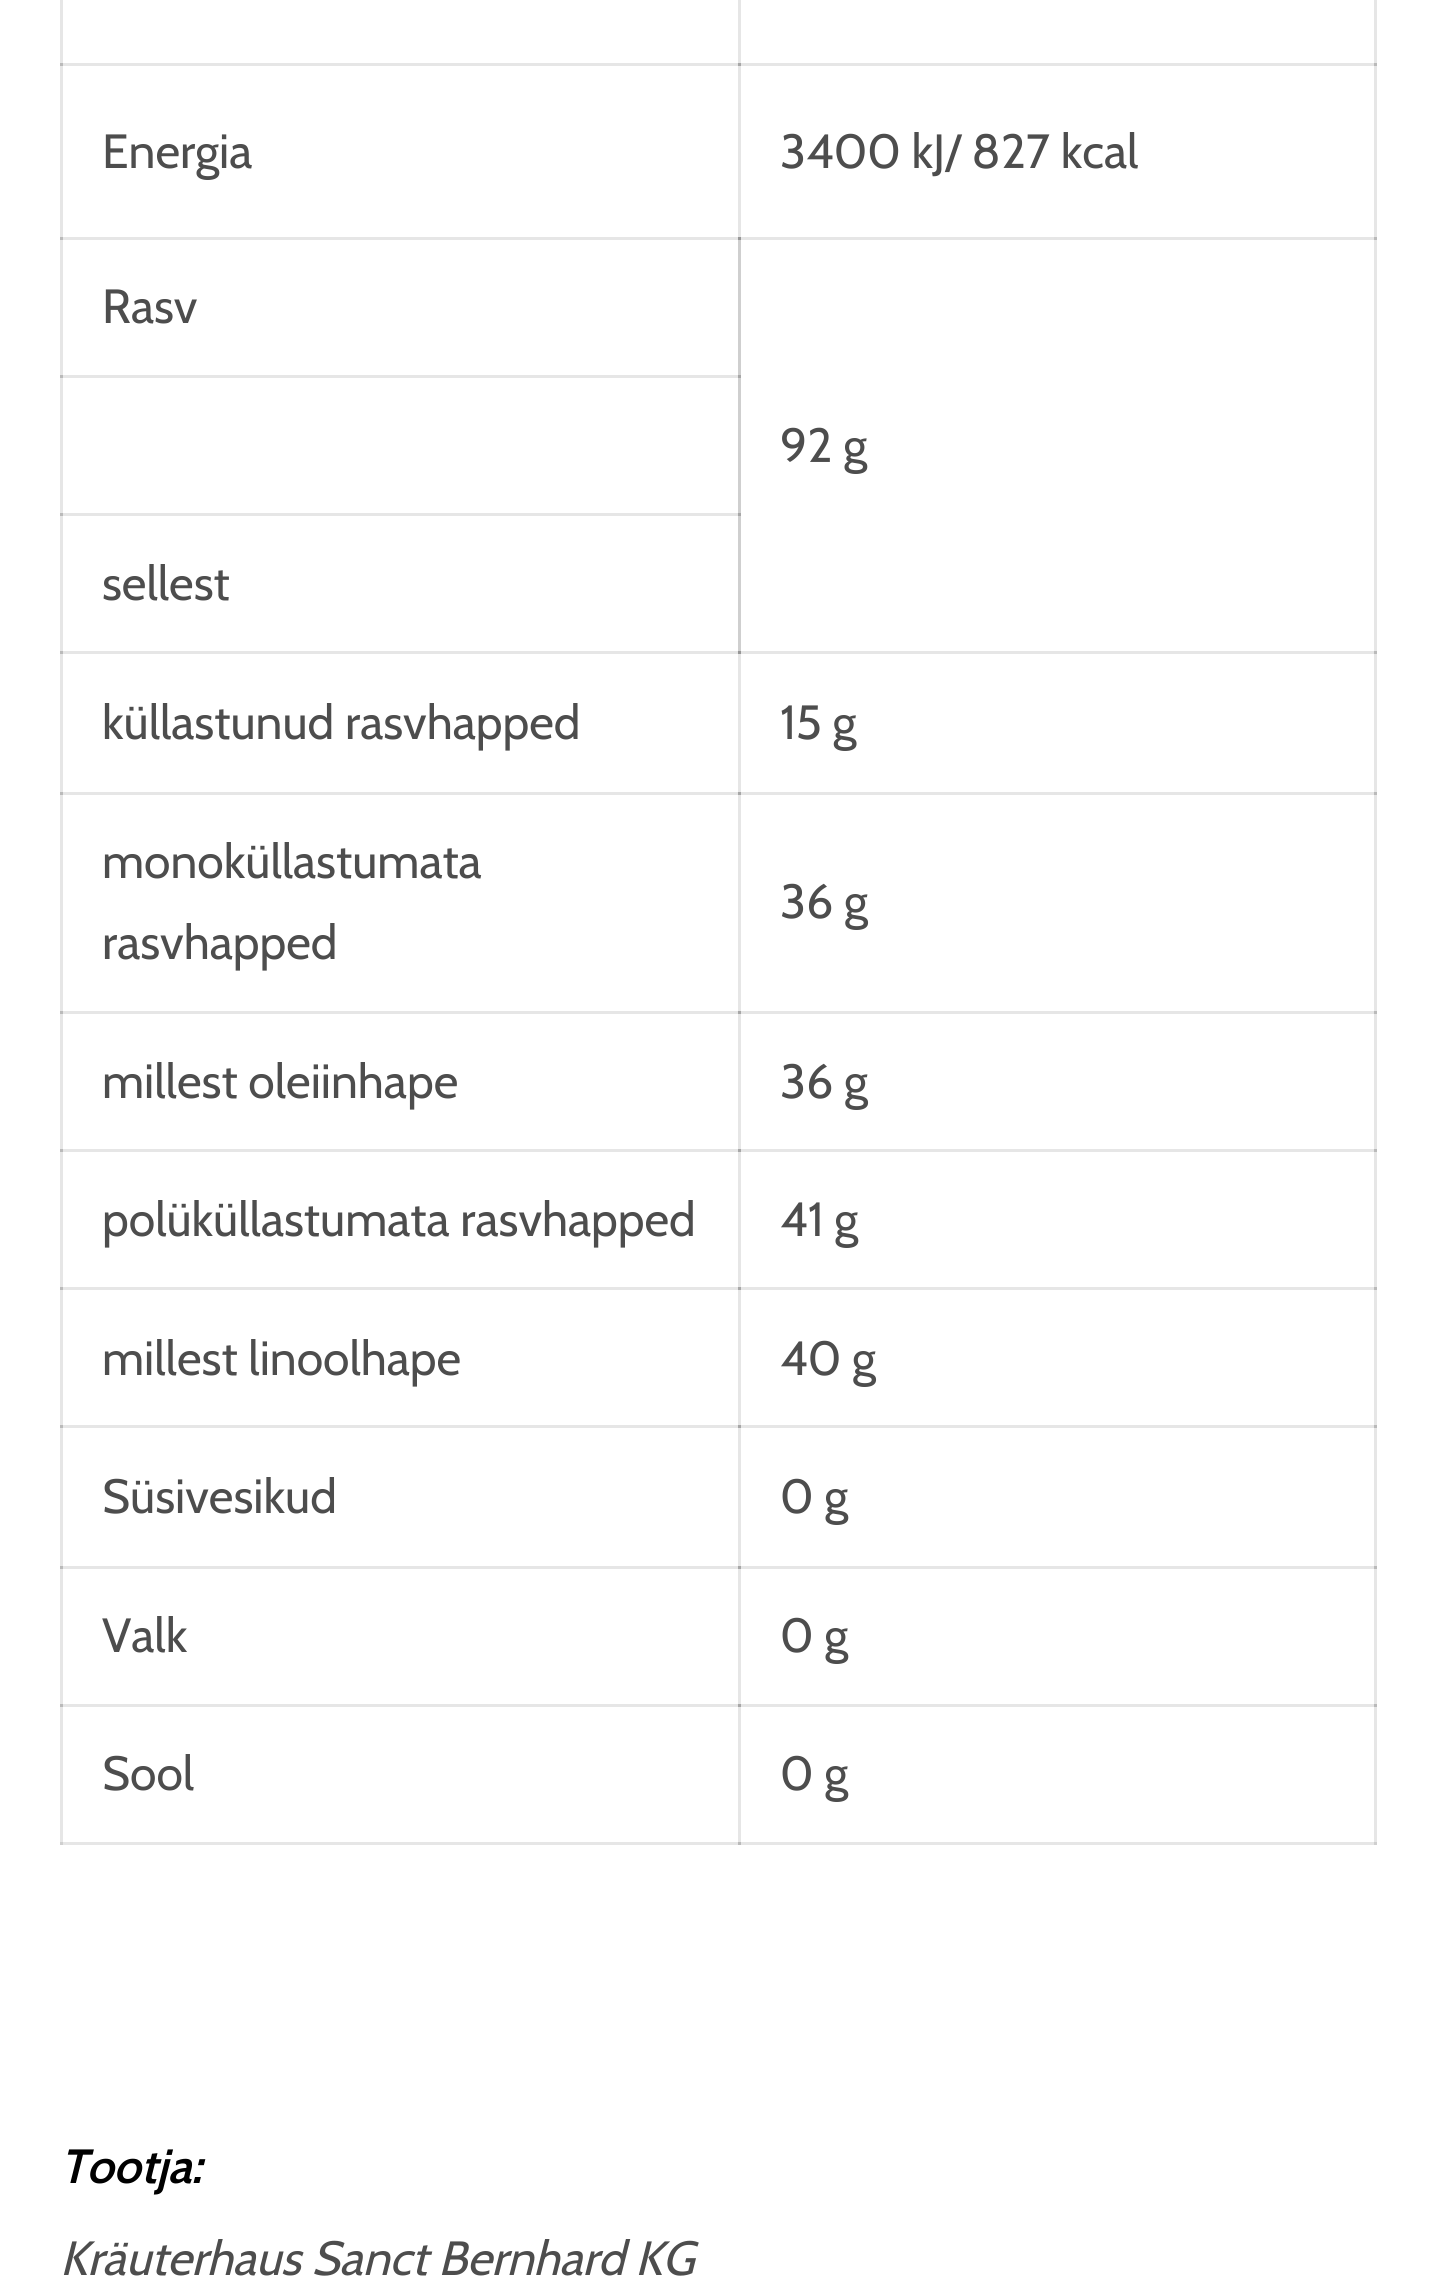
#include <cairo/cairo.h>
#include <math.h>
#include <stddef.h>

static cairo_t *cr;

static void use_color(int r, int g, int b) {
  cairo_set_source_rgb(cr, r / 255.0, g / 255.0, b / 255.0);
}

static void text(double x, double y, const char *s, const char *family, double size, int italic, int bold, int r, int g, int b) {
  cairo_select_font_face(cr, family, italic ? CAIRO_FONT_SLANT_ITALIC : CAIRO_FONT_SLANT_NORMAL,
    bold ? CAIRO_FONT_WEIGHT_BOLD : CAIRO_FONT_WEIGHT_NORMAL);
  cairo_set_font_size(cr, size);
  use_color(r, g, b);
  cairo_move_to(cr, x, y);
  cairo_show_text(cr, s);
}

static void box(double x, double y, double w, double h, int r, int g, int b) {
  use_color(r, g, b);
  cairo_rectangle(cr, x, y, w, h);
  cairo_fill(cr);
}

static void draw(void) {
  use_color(255, 255, 255);
  cairo_paint(cr);
  box(60, 0, 3, 66, 230, 230, 230);
  box(60, 63, 681, 3, 230, 230, 230);
  box(738, 0, 3, 66, 230, 230, 230);
  box(738, 63, 639, 3, 230, 230, 230);
  box(1374, 0, 3, 66, 230, 230, 230);
  box(60, 63, 3, 177, 230, 230, 230);
  box(60, 63, 3, 3, 186, 186, 186);
  box(60, 237, 681, 3, 230, 230, 230);
  box(738, 63, 3, 177, 230, 230, 230);
  box(738, 63, 3, 3, 167, 167, 167);
  box(738, 237, 639, 3, 230, 230, 230);
  box(1374, 63, 3, 177, 230, 230, 230);
  box(1374, 63, 3, 3, 186, 186, 186);
  box(60, 237, 3, 141, 230, 230, 230);
  box(60, 237, 3, 3, 186, 186, 186);
  box(60, 375, 681, 3, 230, 230, 230);
  box(738, 237, 3, 141, 207, 207, 207);
  box(738, 237, 3, 3, 150, 150, 150);
  box(738, 651, 639, 3, 230, 230, 230);
  box(1374, 237, 3, 417, 230, 230, 230);
  box(1374, 237, 3, 3, 186, 186, 186);
  box(60, 375, 3, 141, 230, 230, 230);
  box(60, 375, 3, 3, 186, 186, 186);
  box(60, 513, 681, 3, 230, 230, 230);
  box(738, 375, 3, 141, 207, 207, 207);
  box(738, 375, 3, 3, 167, 167, 167);
  box(60, 513, 3, 141, 230, 230, 230);
  box(60, 513, 3, 3, 186, 186, 186);
  box(60, 651, 681, 3, 230, 230, 230);
  box(738, 513, 3, 141, 207, 207, 207);
  box(738, 513, 3, 3, 167, 167, 167);
  box(60, 651, 3, 144, 230, 230, 230);
  box(60, 651, 3, 3, 186, 186, 186);
  box(60, 792, 681, 3, 230, 230, 230);
  box(738, 651, 3, 144, 230, 230, 230);
  box(738, 651, 3, 3, 150, 150, 150);
  box(738, 792, 639, 3, 230, 230, 230);
  box(1374, 651, 3, 144, 230, 230, 230);
  box(1374, 651, 3, 3, 186, 186, 186);
  box(60, 792, 3, 222, 230, 230, 230);
  box(60, 792, 3, 3, 186, 186, 186);
  box(60, 1011, 681, 3, 230, 230, 230);
  box(738, 792, 3, 222, 230, 230, 230);
  box(738, 792, 3, 3, 167, 167, 167);
  box(738, 1011, 639, 3, 230, 230, 230);
  box(1374, 792, 3, 222, 230, 230, 230);
  box(1374, 792, 3, 3, 186, 186, 186);
  box(60, 1011, 3, 141, 230, 230, 230);
  box(60, 1011, 3, 3, 186, 186, 186);
  box(60, 1149, 681, 3, 230, 230, 230);
  box(738, 1011, 3, 141, 230, 230, 230);
  box(738, 1011, 3, 3, 167, 167, 167);
  box(738, 1149, 639, 3, 230, 230, 230);
  box(1374, 1011, 3, 141, 230, 230, 230);
  box(1374, 1011, 3, 3, 186, 186, 186);
  box(60, 1149, 3, 141, 230, 230, 230);
  box(60, 1149, 3, 3, 186, 186, 186);
  box(60, 1287, 681, 3, 230, 230, 230);
  box(738, 1149, 3, 141, 230, 230, 230);
  box(738, 1149, 3, 3, 167, 167, 167);
  box(738, 1287, 639, 3, 230, 230, 230);
  box(1374, 1149, 3, 141, 230, 230, 230);
  box(1374, 1149, 3, 3, 186, 186, 186);
  box(60, 1287, 3, 141, 230, 230, 230);
  box(60, 1287, 3, 3, 186, 186, 186);
  box(60, 1425, 681, 3, 230, 230, 230);
  box(738, 1287, 3, 141, 230, 230, 230);
  box(738, 1287, 3, 3, 167, 167, 167);
  box(738, 1425, 639, 3, 230, 230, 230);
  box(1374, 1287, 3, 141, 230, 230, 230);
  box(1374, 1287, 3, 3, 186, 186, 186);
  box(60, 1425, 3, 144, 230, 230, 230);
  box(60, 1425, 3, 3, 186, 186, 186);
  box(60, 1566, 681, 3, 230, 230, 230);
  box(738, 1425, 3, 144, 230, 230, 230);
  box(738, 1425, 3, 3, 167, 167, 167);
  box(738, 1566, 639, 3, 230, 230, 230);
  box(1374, 1425, 3, 144, 230, 230, 230);
  box(1374, 1425, 3, 3, 186, 186, 186);
  box(60, 1566, 3, 141, 230, 230, 230);
  box(60, 1566, 3, 3, 186, 186, 186);
  box(60, 1704, 681, 3, 230, 230, 230);
  box(738, 1566, 3, 141, 230, 230, 230);
  box(738, 1566, 3, 3, 167, 167, 167);
  box(738, 1704, 639, 3, 230, 230, 230);
  box(1374, 1566, 3, 141, 230, 230, 230);
  box(1374, 1566, 3, 3, 186, 186, 186);
  box(60, 1704, 3, 141, 230, 230, 230);
  box(60, 1704, 3, 3, 186, 186, 186);
  box(60, 1842, 681, 3, 230, 230, 230);
  box(60, 1842, 3, 3, 207, 207, 207);
  box(738, 1704, 3, 141, 230, 230, 230);
  box(738, 1704, 3, 3, 167, 167, 167);
  box(738, 1842, 639, 3, 230, 230, 230);
  box(738, 1842, 3, 3, 186, 186, 186);
  box(1374, 1704, 3, 141, 230, 230, 230);
  box(1374, 1704, 3, 3, 186, 186, 186);
  box(1374, 1842, 3, 3, 207, 207, 207);
  text(102, 168, "Energia", "Cabin", 48, 0, 0, 77, 77, 77);
  text(780, 168, "3400 kJ/ 827 kcal", "Cabin", 48, 0, 0, 77, 77, 77);
  text(102, 323, "Rasv", "Cabin", 48, 0, 0, 77, 77, 77);
  text(780, 462, "92 g", "Cabin", 48, 0, 0, 77, 77, 77);
  text(102, 600, "sellest", "Cabin", 48, 0, 0, 77, 77, 77);
  text(102, 739, "küllastunud rasvhapped", "Cabin", 48, 0, 0, 77, 77, 77);
  text(780, 739, "15 g", "Cabin", 48, 0, 0, 77, 77, 77);
  text(102, 878, "monoküllastumata", "Cabin", 48, 0, 0, 77, 77, 77);
  text(102, 959, "rasvhapped", "Cabin", 48, 0, 0, 77, 77, 77);
  text(780, 918, "36 g", "Cabin", 48, 0, 0, 77, 77, 77);
  text(102, 1098, "millest oleiinhape", "Cabin", 48, 0, 0, 77, 77, 77);
  text(780, 1098, "36 g", "Cabin", 48, 0, 0, 77, 77, 77);
  text(102, 1236, "polüküllastumata rasvhapped", "Cabin", 48, 0, 0, 77, 77, 77);
  text(780, 1236, "41 g", "Cabin", 48, 0, 0, 77, 77, 77);
  text(102, 1375, "millest linoolhape", "Cabin", 48, 0, 0, 77, 77, 77);
  text(780, 1375, "40 g", "Cabin", 48, 0, 0, 77, 77, 77);
  text(102, 1513, "Süsivesikud", "Cabin", 48, 0, 0, 77, 77, 77);
  text(780, 1513, "0 g", "Cabin", 48, 0, 0, 77, 77, 77);
  text(102, 1652, "Valk", "Cabin", 48, 0, 0, 77, 77, 77);
  text(780, 1652, "0 g", "Cabin", 48, 0, 0, 77, 77, 77);
  text(102, 1790, "Sool", "Cabin", 48, 0, 0, 77, 77, 77);
  text(780, 1790, "0 g", "Cabin", 48, 0, 0, 77, 77, 77);
  text(60, 2183, "Tootja:", "Cabin SemiBold", 48, 1, 0, 0, 0, 0);
  text(60, 2275, "Kräuterhaus Sanct Bernhard KG", "Cabin", 48, 1, 0, 77, 77, 77);
}

int main(void) {
  cairo_surface_t *surface = cairo_image_surface_create(CAIRO_FORMAT_RGB24, 1435, 2278);
  cr = cairo_create(surface);
  cairo_font_options_t *options = cairo_font_options_create();
  cairo_font_options_set_hint_metrics(options, CAIRO_HINT_METRICS_OFF);
  cairo_font_options_set_hint_style(options, CAIRO_HINT_STYLE_NONE);
  cairo_set_font_options(cr, options);
  cairo_set_miter_limit(cr, 4);
  draw();
  cairo_surface_write_to_png(surface, "out.png");
  cairo_font_options_destroy(options);
  cairo_destroy(cr);
  cairo_surface_destroy(surface);
  return 0;
}
